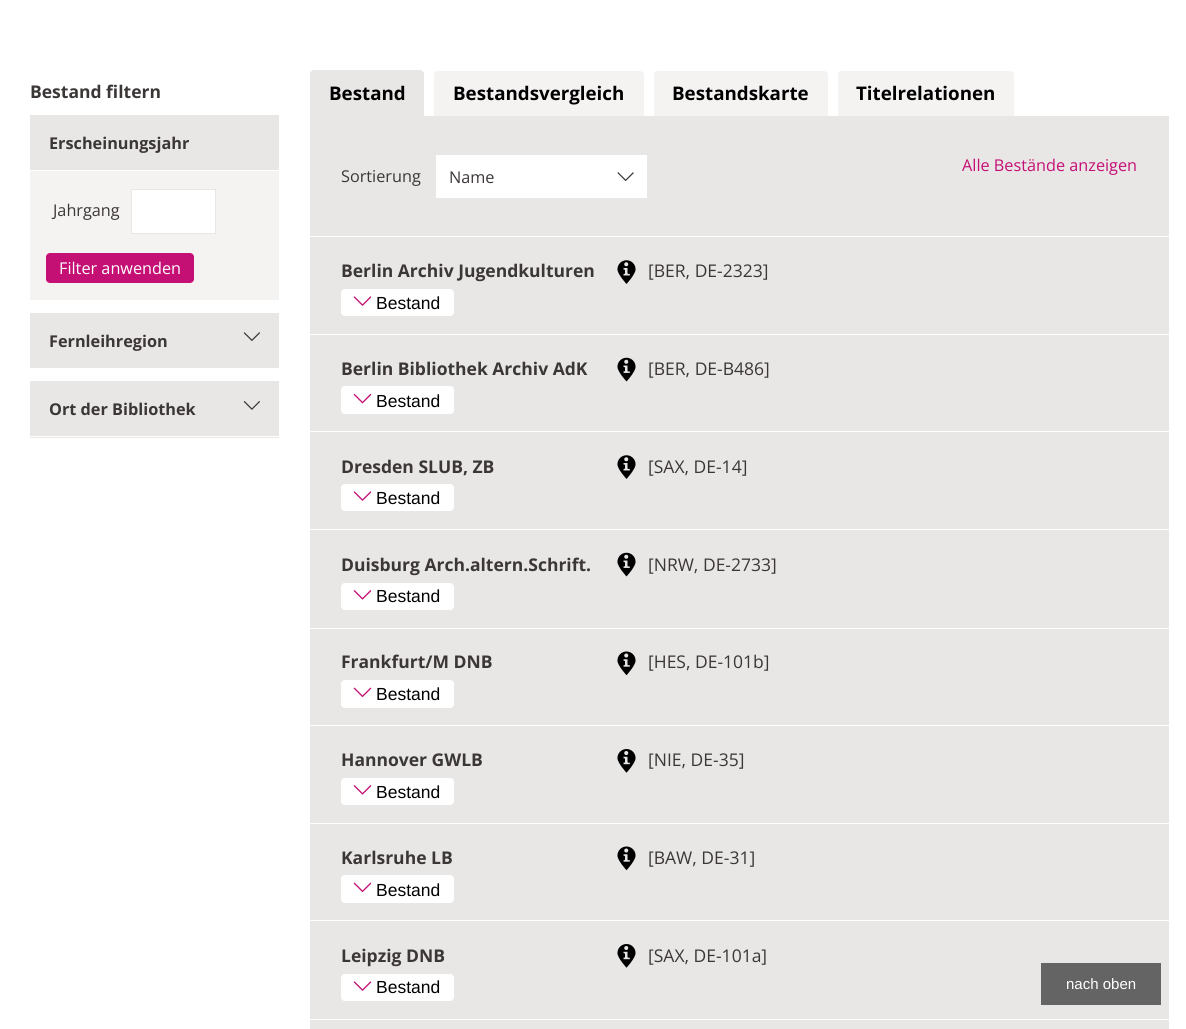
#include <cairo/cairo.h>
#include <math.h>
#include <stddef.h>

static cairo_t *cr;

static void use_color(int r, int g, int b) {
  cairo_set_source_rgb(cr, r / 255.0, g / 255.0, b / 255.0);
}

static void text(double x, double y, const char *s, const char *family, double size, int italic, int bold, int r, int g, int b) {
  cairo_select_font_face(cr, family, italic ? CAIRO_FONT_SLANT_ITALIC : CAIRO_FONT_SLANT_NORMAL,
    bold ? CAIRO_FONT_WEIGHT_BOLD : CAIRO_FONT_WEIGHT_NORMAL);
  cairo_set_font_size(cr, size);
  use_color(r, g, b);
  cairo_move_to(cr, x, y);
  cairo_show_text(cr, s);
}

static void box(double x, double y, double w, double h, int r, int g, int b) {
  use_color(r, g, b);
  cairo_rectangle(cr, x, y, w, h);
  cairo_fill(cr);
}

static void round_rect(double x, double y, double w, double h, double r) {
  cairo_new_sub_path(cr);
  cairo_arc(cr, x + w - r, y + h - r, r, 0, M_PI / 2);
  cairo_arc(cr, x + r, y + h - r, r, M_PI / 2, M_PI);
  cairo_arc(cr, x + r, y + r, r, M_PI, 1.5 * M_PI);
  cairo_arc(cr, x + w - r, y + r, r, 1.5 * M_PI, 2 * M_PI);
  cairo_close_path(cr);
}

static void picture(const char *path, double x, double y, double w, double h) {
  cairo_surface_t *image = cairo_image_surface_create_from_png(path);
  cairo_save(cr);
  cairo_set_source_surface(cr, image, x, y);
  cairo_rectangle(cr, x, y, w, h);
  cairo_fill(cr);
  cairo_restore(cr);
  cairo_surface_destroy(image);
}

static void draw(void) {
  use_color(255, 255, 255);
  cairo_paint(cr);
  box(30, 115, 249, 55, 233, 230, 230);
  box(30, 171, 249, 129, 245, 242, 242);
  use_color(255, 255, 255);
  cairo_rectangle(cr, 131.5, 189.5, 84, 44);
  cairo_fill_preserve(cr);
  use_color(233, 230, 230);
  cairo_set_line_width(cr, 1);
  cairo_stroke(cr);
  use_color(196, 15, 116);
  round_rect(46, 253, 148, 30, 4);
  cairo_fill(cr);
  box(30, 313, 249, 55, 233, 230, 230);
  picture("img_01.png", 243, 332, 17, 9);
  box(30, 381, 249, 57, 233, 230, 230);
  box(30, 436, 249, 1, 255, 255, 255);
  picture("img_02.png", 243, 401, 17, 9);
  use_color(233, 230, 230);
  cairo_new_path(cr);
  cairo_move_to(cr, 314, 70);
  cairo_line_to(cr, 420, 70);
  cairo_curve_to(cr, 422, 70, 424, 72, 424, 74);
  cairo_line_to(cr, 424, 116);
  cairo_line_to(cr, 310, 116);
  cairo_line_to(cr, 310, 74);
  cairo_curve_to(cr, 310, 72, 312, 70, 314, 70);
  cairo_close_path(cr);
  cairo_fill(cr);
  use_color(245, 242, 242);
  cairo_new_path(cr);
  cairo_move_to(cr, 438, 70);
  cairo_line_to(cr, 640, 70);
  cairo_curve_to(cr, 642, 70, 644, 72, 644, 74);
  cairo_line_to(cr, 644, 116);
  cairo_line_to(cr, 434, 116);
  cairo_line_to(cr, 434, 74);
  cairo_curve_to(cr, 434, 72, 436, 70, 438, 70);
  cairo_close_path(cr);
  cairo_fill(cr);
  use_color(255, 255, 255);
  cairo_new_path(cr);
  cairo_move_to(cr, 438, 71);
  cairo_line_to(cr, 640, 71);
  cairo_curve_to(cr, 642, 71, 644, 73, 644, 75);
  cairo_line_to(cr, 644, 74);
  cairo_curve_to(cr, 644, 72, 642, 70, 640, 70);
  cairo_line_to(cr, 438, 70);
  cairo_curve_to(cr, 436, 70, 434, 72, 434, 74);
  cairo_line_to(cr, 434, 75);
  cairo_curve_to(cr, 434, 73, 435, 71, 438, 71);
  cairo_close_path(cr);
  cairo_fill(cr);
  use_color(245, 242, 242);
  cairo_new_path(cr);
  cairo_move_to(cr, 658, 70);
  cairo_line_to(cr, 824, 70);
  cairo_curve_to(cr, 826, 70, 828, 72, 828, 74);
  cairo_line_to(cr, 828, 116);
  cairo_line_to(cr, 654, 116);
  cairo_line_to(cr, 654, 74);
  cairo_curve_to(cr, 654, 72, 656, 70, 658, 70);
  cairo_close_path(cr);
  cairo_fill(cr);
  use_color(255, 255, 255);
  cairo_new_path(cr);
  cairo_move_to(cr, 658, 71);
  cairo_line_to(cr, 824, 71);
  cairo_curve_to(cr, 826, 71, 828, 73, 828, 75);
  cairo_line_to(cr, 828, 74);
  cairo_curve_to(cr, 828, 72, 826, 70, 824, 70);
  cairo_line_to(cr, 658, 70);
  cairo_curve_to(cr, 656, 70, 654, 72, 654, 74);
  cairo_line_to(cr, 654, 75);
  cairo_curve_to(cr, 654, 73, 655, 71, 658, 71);
  cairo_close_path(cr);
  cairo_fill(cr);
  use_color(245, 242, 242);
  cairo_new_path(cr);
  cairo_move_to(cr, 842, 70);
  cairo_line_to(cr, 1010, 70);
  cairo_curve_to(cr, 1012, 70, 1014, 72, 1014, 74);
  cairo_line_to(cr, 1014, 116);
  cairo_line_to(cr, 838, 116);
  cairo_line_to(cr, 838, 74);
  cairo_curve_to(cr, 838, 72, 840, 70, 842, 70);
  cairo_close_path(cr);
  cairo_fill(cr);
  use_color(255, 255, 255);
  cairo_new_path(cr);
  cairo_move_to(cr, 841, 71);
  cairo_line_to(cr, 1010, 71);
  cairo_curve_to(cr, 1012, 71, 1014, 73, 1014, 75);
  cairo_line_to(cr, 1014, 74);
  cairo_curve_to(cr, 1014, 72, 1012, 70, 1010, 70);
  cairo_line_to(cr, 842, 70);
  cairo_curve_to(cr, 840, 70, 838, 72, 838, 74);
  cairo_line_to(cr, 838, 75);
  cairo_curve_to(cr, 838, 73, 839, 71, 841, 71);
  cairo_close_path(cr);
  cairo_fill(cr);
  box(310, 116, 859, 913, 233, 230, 230);
  box(436, 155, 211, 43, 255, 255, 255);
  picture("img_03.png", 617, 172, 17, 9);
  box(310, 236, 859, 1, 255, 255, 255);
  picture("img_04.png", 617, 260, 19, 24);
  round_rect(341, 289, 113, 27, 4);
  cairo_fill(cr);
  picture("img_05.png", 353, 296, 19, 10);
  box(310, 334, 859, 1, 255, 255, 255);
  picture("img_06.png", 617, 357, 19, 25);
  round_rect(341, 386, 113, 28, 4);
  cairo_fill(cr);
  picture("img_07.png", 353, 393, 19, 11);
  box(310, 431, 859, 1, 255, 255, 255);
  picture("img_04.png", 617, 455, 19, 24);
  round_rect(341, 484, 113, 27, 4);
  cairo_fill(cr);
  picture("img_05.png", 353, 491, 19, 10);
  box(310, 529, 859, 1, 255, 255, 255);
  picture("img_06.png", 617, 552, 19, 25);
  round_rect(341, 583, 113, 27, 4);
  cairo_fill(cr);
  picture("img_08.png", 353, 590, 19, 10);
  box(310, 628, 859, 1, 255, 255, 255);
  picture("img_09.png", 617, 651, 19, 25);
  round_rect(341, 680, 113, 28, 4);
  cairo_fill(cr);
  picture("img_10.png", 353, 687, 19, 10);
  box(310, 725, 859, 1, 255, 255, 255);
  picture("img_11.png", 617, 749, 19, 24);
  round_rect(341, 778, 113, 27, 4);
  cairo_fill(cr);
  picture("img_08.png", 353, 785, 19, 10);
  box(310, 823, 859, 1, 255, 255, 255);
  picture("img_09.png", 617, 846, 19, 25);
  round_rect(341, 875, 113, 28, 4);
  cairo_fill(cr);
  picture("img_10.png", 353, 882, 19, 10);
  box(310, 920, 859, 1, 255, 255, 255);
  picture("img_11.png", 617, 944, 19, 24);
  round_rect(341, 974, 113, 27, 4);
  cairo_fill(cr);
  picture("img_05.png", 353, 981, 19, 10);
  box(310, 1019, 859, 1, 255, 255, 255);
  box(1041, 963, 120, 42, 100, 100, 100);
  text(30, 98, "Bestand filtern", "Open Sans", 17.5, 0, 1, 60, 55, 55);
  text(49, 149, "Erscheinungsjahr", "Open Sans", 16.25, 0, 1, 60, 55, 55);
  text(53, 216, "Jahrgang", "Open Sans", 16.25, 0, 0, 60, 55, 55);
  text(59, 274, "Filter anwenden", "Open Sans", 16.25, 0, 0, 255, 255, 255);
  text(49, 347, "Fernleihregion", "Open Sans", 16.25, 0, 1, 60, 55, 55);
  text(49, 415, "Ort der Bibliothek", "Open Sans", 16.25, 0, 1, 60, 55, 55);
  text(329, 100, "Bestand", "Open Sans", 18.75, 0, 1, 0, 0, 0);
  text(453, 100, "Bestandsvergleich", "Open Sans", 18.75, 0, 1, 0, 0, 0);
  text(672, 100, "Bestandskarte", "Open Sans", 18.75, 0, 1, 0, 0, 0);
  text(856, 100, "Titelrelationen", "Open Sans", 18.75, 0, 1, 0, 0, 0);
  text(962, 171, "Alle Bestände anzeigen", "Open Sans", 16.25, 0, 0, 196, 15, 116);
  text(341, 182, "Sortierung", "Open Sans", 16.25, 0, 0, 60, 55, 55);
  text(449, 183, "Name", "Open Sans", 16.25, 0, 0, 60, 55, 55);
  text(341, 277, "Berlin Archiv Jugendkulturen", "Open Sans", 17.5, 0, 1, 60, 55, 55);
  text(648, 277, "[BER, DE-2323]", "Open Sans", 17.5, 0, 0, 60, 55, 55);
  text(376, 309, "Bestand", "Liberation Sans", 17.5, 0, 0, 0, 0, 0);
  text(341, 375, "Berlin Bibliothek Archiv AdK", "Open Sans", 17.5, 0, 1, 60, 55, 55);
  text(648, 375, "[BER, DE-B486]", "Open Sans", 17.5, 0, 0, 60, 55, 55);
  text(376, 407, "Bestand", "Liberation Sans", 17.5, 0, 0, 0, 0, 0);
  text(341, 473, "Dresden SLUB, ZB", "Open Sans", 17.5, 0, 1, 60, 55, 55);
  text(648, 473, "[SAX, DE-14]", "Open Sans", 17.5, 0, 0, 60, 55, 55);
  text(376, 504, "Bestand", "Liberation Sans", 17.5, 0, 0, 0, 0, 0);
  text(341, 571, "Duisburg Arch.altern.Schrift.", "Open Sans", 17.5, 0, 1, 60, 55, 55);
  text(648, 571, "[NRW, DE-2733]", "Open Sans", 17.5, 0, 0, 60, 55, 55);
  text(376, 602, "Bestand", "Liberation Sans", 17.5, 0, 0, 0, 0, 0);
  text(341, 668, "Frankfurt/M DNB", "Open Sans", 17.5, 0, 1, 60, 55, 55);
  text(648, 668, "[HES, DE-101b]", "Open Sans", 17.5, 0, 0, 60, 55, 55);
  text(376, 700, "Bestand", "Liberation Sans", 17.5, 0, 0, 0, 0, 0);
  text(341, 766, "Hannover GWLB", "Open Sans", 17.5, 0, 1, 60, 55, 55);
  text(648, 766, "[NIE, DE-35]", "Open Sans", 17.5, 0, 0, 60, 55, 55);
  text(376, 798, "Bestand", "Liberation Sans", 17.5, 0, 0, 0, 0, 0);
  text(341, 864, "Karlsruhe LB", "Open Sans", 17.5, 0, 1, 60, 55, 55);
  text(648, 864, "[BAW, DE-31]", "Open Sans", 17.5, 0, 0, 60, 55, 55);
  text(376, 896, "Bestand", "Liberation Sans", 17.5, 0, 0, 0, 0, 0);
  text(341, 962, "Leipzig DNB", "Open Sans", 17.5, 0, 1, 60, 55, 55);
  text(648, 962, "[SAX, DE-101a]", "Open Sans", 17.5, 0, 0, 60, 55, 55);
  text(376, 993, "Bestand", "Liberation Sans", 17.5, 0, 0, 0, 0, 0);
  text(1066, 989, "nach oben", "Liberation Sans", 15, 0, 0, 255, 255, 255);
}

int main(void) {
  cairo_surface_t *surface = cairo_image_surface_create(CAIRO_FORMAT_RGB24, 1186, 1029);
  cr = cairo_create(surface);
  cairo_font_options_t *options = cairo_font_options_create();
  cairo_font_options_set_hint_metrics(options, CAIRO_HINT_METRICS_OFF);
  cairo_font_options_set_hint_style(options, CAIRO_HINT_STYLE_NONE);
  cairo_set_font_options(cr, options);
  cairo_set_miter_limit(cr, 4);
  draw();
  cairo_surface_write_to_png(surface, "out.png");
  cairo_font_options_destroy(options);
  cairo_destroy(cr);
  cairo_surface_destroy(surface);
  return 0;
}
